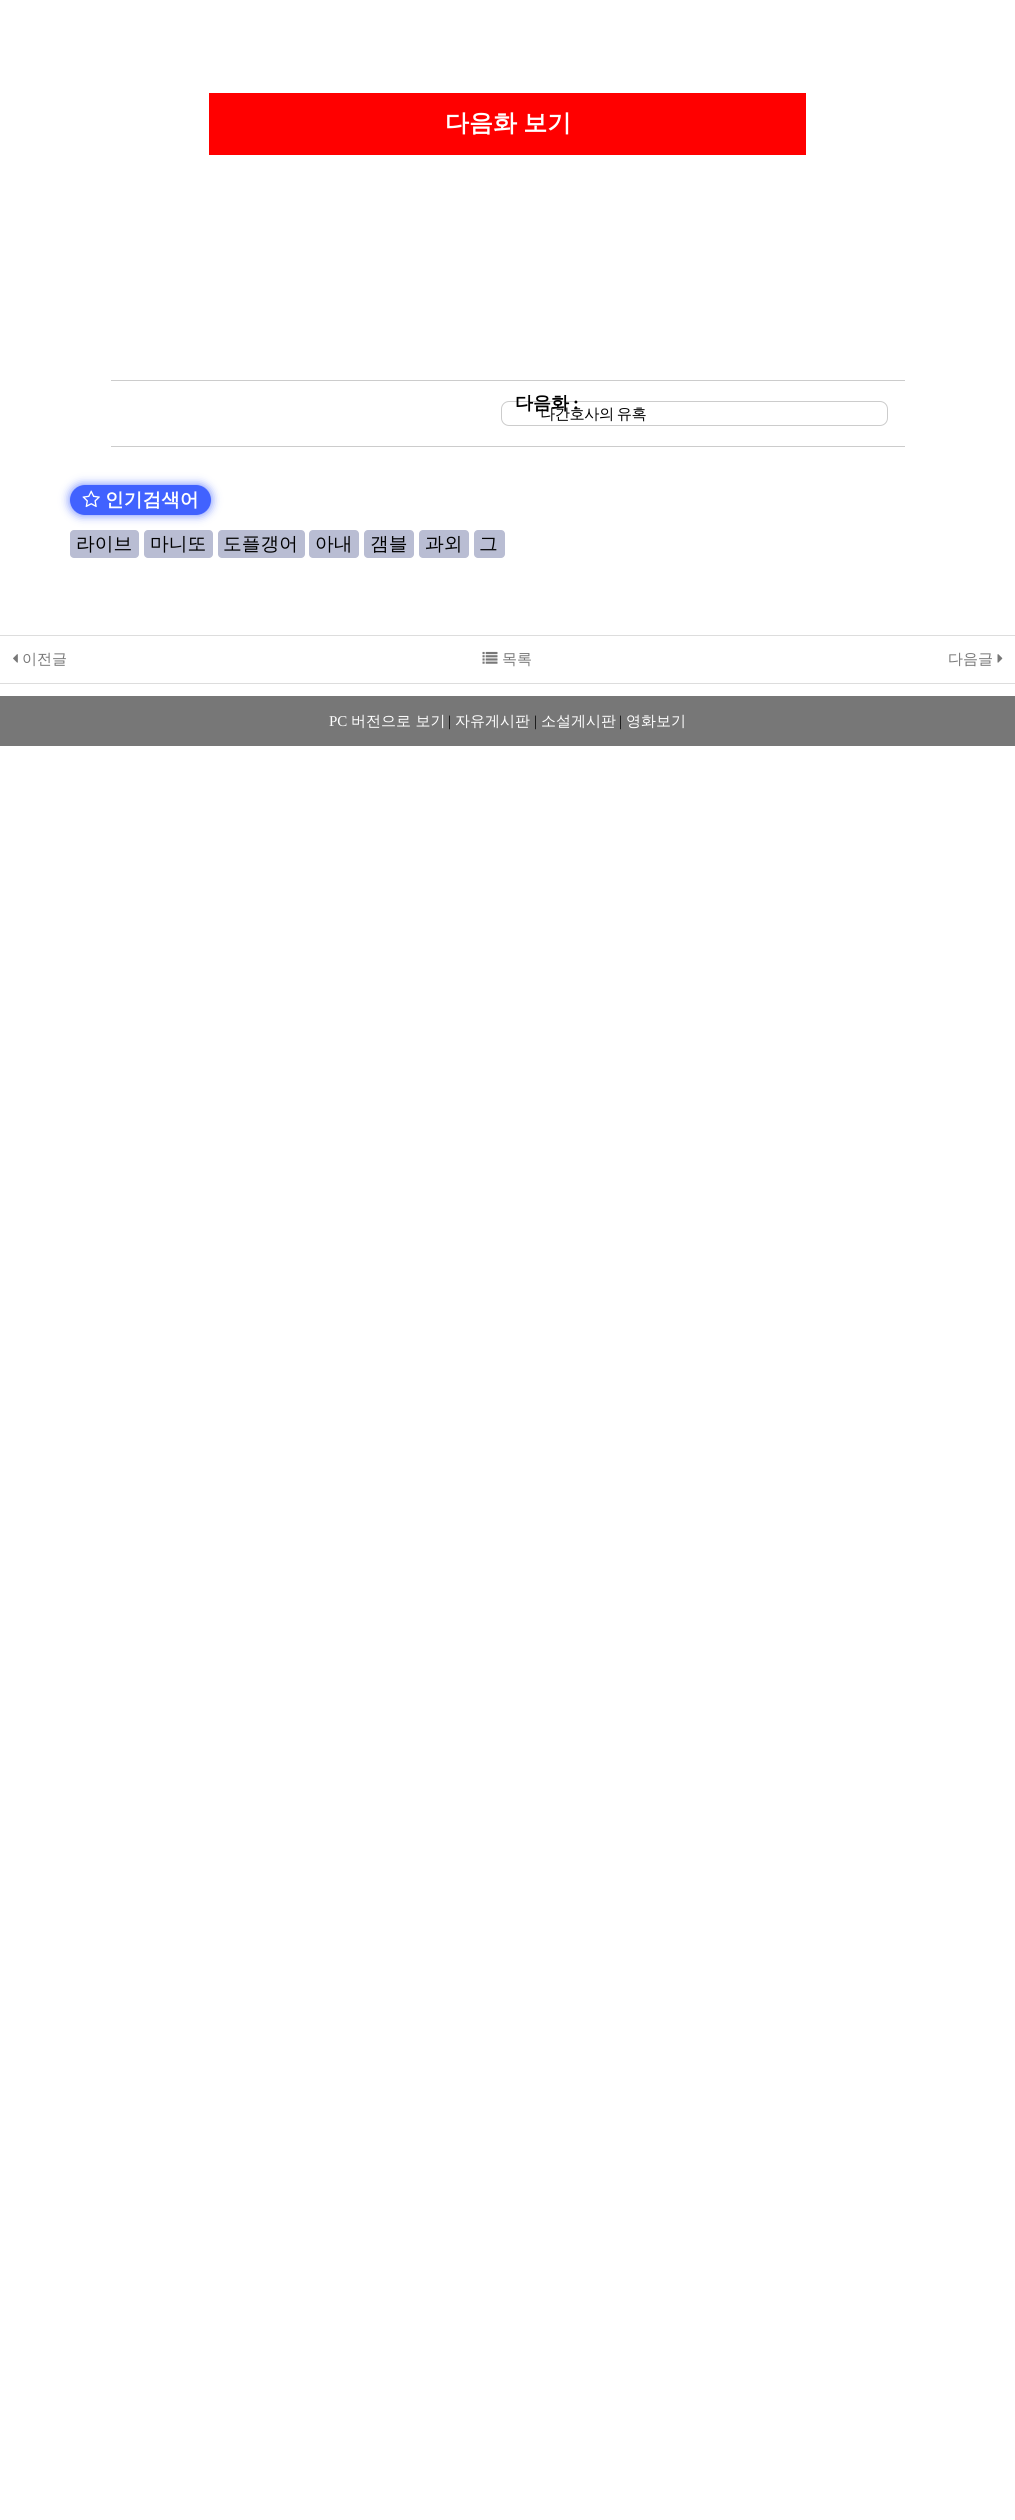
#include <cairo/cairo.h>
#include <math.h>
#include <stddef.h>

static cairo_t *cr;

static void use_color(int r, int g, int b) {
  cairo_set_source_rgb(cr, r / 255.0, g / 255.0, b / 255.0);
}

static void text(double x, double y, const char *s, const char *family, double size, int italic, int bold, int r, int g, int b) {
  cairo_select_font_face(cr, family, italic ? CAIRO_FONT_SLANT_ITALIC : CAIRO_FONT_SLANT_NORMAL,
    bold ? CAIRO_FONT_WEIGHT_BOLD : CAIRO_FONT_WEIGHT_NORMAL);
  cairo_set_font_size(cr, size);
  use_color(r, g, b);
  cairo_move_to(cr, x, y);
  cairo_show_text(cr, s);
}

static void spaced_text(double x, double y, const char *s, double letter, double word) {
  cairo_move_to(cr, x, y);
  while (*s) {
    char ch[5] = {0};
    int n = 0;
    do ch[n++] = *s++; while ((*s & 0xC0) == 0x80);
    cairo_show_text(cr, ch);
    cairo_rel_move_to(cr, letter + word * (*ch == ' '), 0);
  }
}

static void box(double x, double y, double w, double h, int r, int g, int b) {
  use_color(r, g, b);
  cairo_rectangle(cr, x, y, w, h);
  cairo_fill(cr);
}

static void round_rect(double x, double y, double w, double h, double r) {
  cairo_new_sub_path(cr);
  cairo_arc(cr, x + w - r, y + h - r, r, 0, M_PI / 2);
  cairo_arc(cr, x + r, y + h - r, r, M_PI / 2, M_PI);
  cairo_arc(cr, x + r, y + r, r, M_PI, 1.5 * M_PI);
  cairo_arc(cr, x + w - r, y + r, r, 1.5 * M_PI, 2 * M_PI);
  cairo_close_path(cr);
}

static void shadow(double x, double y, double w, double h, double r, double blur, double alpha) {
  cairo_push_group_with_content(cr, CAIRO_CONTENT_ALPHA);
  cairo_set_operator(cr, CAIRO_OPERATOR_SOURCE);
  for (int i = 15; i >= -15 && fmin(w, h) + blur * i / 3 > 0; i -= 2) {
    double e = blur * i / 6;
    cairo_set_source_rgba(cr, 0, 0, 0, alpha * erfc((i - 1) / 8.5) / 2);
    round_rect(x - e, y - e, w + 2 * e, h + 2 * e, fmax(0, fmin(r + e + blur * .6, fmin(w, h) / 2 + e)));
    cairo_fill(cr);
  }
  cairo_pattern_t *soft = cairo_pop_group(cr);
  cairo_mask(cr, soft);
  cairo_pattern_destroy(soft);
}

static void picture(const char *path, double x, double y, double w, double h) {
  cairo_surface_t *image = cairo_image_surface_create_from_png(path);
  cairo_save(cr);
  cairo_set_source_surface(cr, image, x, y);
  cairo_rectangle(cr, x, y, w, h);
  cairo_fill(cr);
  cairo_restore(cr);
  cairo_surface_destroy(image);
}

static void draw(void) {
  use_color(255, 255, 255);
  cairo_paint(cr);
  box(209, 93, 597, 62, 255, 0, 0);
  box(111, 380, 794, 1, 204, 204, 204);
  box(111, 446, 794, 1, 204, 204, 204);
  round_rect(501.5, 401.5, 386, 24, 7.5);
  cairo_set_line_width(cr, 1);
  cairo_stroke(cr);
  use_color(65, 98, 255);
  shadow(70, 485, 141, 30, 15, 5, 0.8);
  use_color(65, 98, 255);
  round_rect(70, 485, 141, 30, 15);
  cairo_fill(cr);
  picture("img_01.png", 82, 490, 18, 18);
  use_color(185, 189, 211);
  round_rect(70, 530, 69, 28, 4);
  cairo_fill(cr);
  round_rect(144, 530, 69, 28, 4);
  cairo_fill(cr);
  round_rect(218, 530, 87, 28, 4);
  cairo_fill(cr);
  round_rect(309, 530, 50, 28, 4);
  cairo_fill(cr);
  round_rect(364, 530, 50, 28, 4);
  cairo_fill(cr);
  round_rect(419, 530, 50, 28, 4);
  cairo_fill(cr);
  round_rect(474, 530, 31, 28, 4);
  cairo_fill(cr);
  box(0, 635, 1015, 1, 221, 221, 221);
  box(0, 683, 1015, 1, 221, 221, 221);
  picture("img_02.png", 13, 654, 5, 9);
  picture("img_03.png", 482, 651, 16, 13);
  picture("img_04.png", 997, 654, 6, 9);
  box(0, 696, 1015, 50, 119, 119, 119);
  cairo_select_font_face(cr, "WenQuanYi Zen Hei", CAIRO_FONT_SLANT_NORMAL, CAIRO_FONT_WEIGHT_BOLD);
  cairo_set_font_size(cr, 24);
  use_color(255, 255, 255);
  spaced_text(445, 131, "다음화 보기", 0, -1);
  text(515, 409, "다음화", "WenQuanYi Zen Hei", 18, 0, 1, 0, 0, 0);
  text(573, 409, ":", "Liberation Serif", 18, 0, 1, 0, 0, 0);
  cairo_select_font_face(cr, "WenQuanYi Zen Hei Medium", CAIRO_FONT_SLANT_NORMAL, CAIRO_FONT_WEIGHT_NORMAL);
  cairo_set_font_size(cr, 15.25);
  spaced_text(540, 419, "나간호사의 유혹", -0.5, -1);
  text(105, 506, "인기검색어", "WenQuanYi Zen Hei", 18.75, 0, 1, 255, 255, 255);
  text(76, 550, "라이브", "WenQuanYi Zen Hei Medium", 18.75, 0, 0, 0, 0, 0);
  text(150, 550, "마니또", "WenQuanYi Zen Hei Medium", 18.75, 0, 0, 0, 0, 0);
  text(223, 550, "도플갱어", "WenQuanYi Zen Hei Medium", 18.75, 0, 0, 0, 0, 0);
  text(315, 550, "아내", "WenQuanYi Zen Hei Medium", 18.75, 0, 0, 0, 0, 0);
  text(370, 550, "갬블", "WenQuanYi Zen Hei Medium", 18.75, 0, 0, 0, 0, 0);
  text(425, 550, "과외", "WenQuanYi Zen Hei Medium", 18.75, 0, 0, 0, 0, 0);
  text(479, 550, "그", "WenQuanYi Zen Hei Medium", 18.75, 0, 0, 0, 0, 0);
  text(22, 664, "이전글", "WenQuanYi Zen Hei Medium", 15, 0, 0, 119, 119, 119);
  text(502, 664, "목록", "WenQuanYi Zen Hei Medium", 15, 0, 0, 119, 119, 119);
  text(948, 664, "다음글", "WenQuanYi Zen Hei Medium", 15, 0, 0, 119, 119, 119);
  text(329, 726, "PC", "Liberation Serif", 15, 0, 0, 255, 255, 255);
  text(351, 726, "버전으로 보기", "WenQuanYi Zen Hei Medium", 15, 0, 0, 255, 255, 255);
  text(448, 726, "|", "Liberation Serif", 15, 0, 0, 0, 0, 0);
  text(455, 726, "자유게시판", "WenQuanYi Zen Hei Medium", 15, 0, 0, 255, 255, 255);
  text(534, 726, "|", "Liberation Serif", 15, 0, 0, 0, 0, 0);
  text(541, 726, "소설게시판", "WenQuanYi Zen Hei Medium", 15, 0, 0, 255, 255, 255);
  text(619, 726, "|", "Liberation Serif", 15, 0, 0, 0, 0, 0);
  text(626, 726, "영화보기", "WenQuanYi Zen Hei Medium", 15, 0, 0, 255, 255, 255);
}

int main(void) {
  cairo_surface_t *surface = cairo_image_surface_create(CAIRO_FORMAT_RGB24, 1015, 2520);
  cr = cairo_create(surface);
  cairo_font_options_t *options = cairo_font_options_create();
  cairo_font_options_set_hint_metrics(options, CAIRO_HINT_METRICS_OFF);
  cairo_font_options_set_hint_style(options, CAIRO_HINT_STYLE_NONE);
  cairo_set_font_options(cr, options);
  cairo_set_miter_limit(cr, 4);
  draw();
  cairo_surface_write_to_png(surface, "out.png");
  cairo_font_options_destroy(options);
  cairo_destroy(cr);
  cairo_surface_destroy(surface);
  return 0;
}
